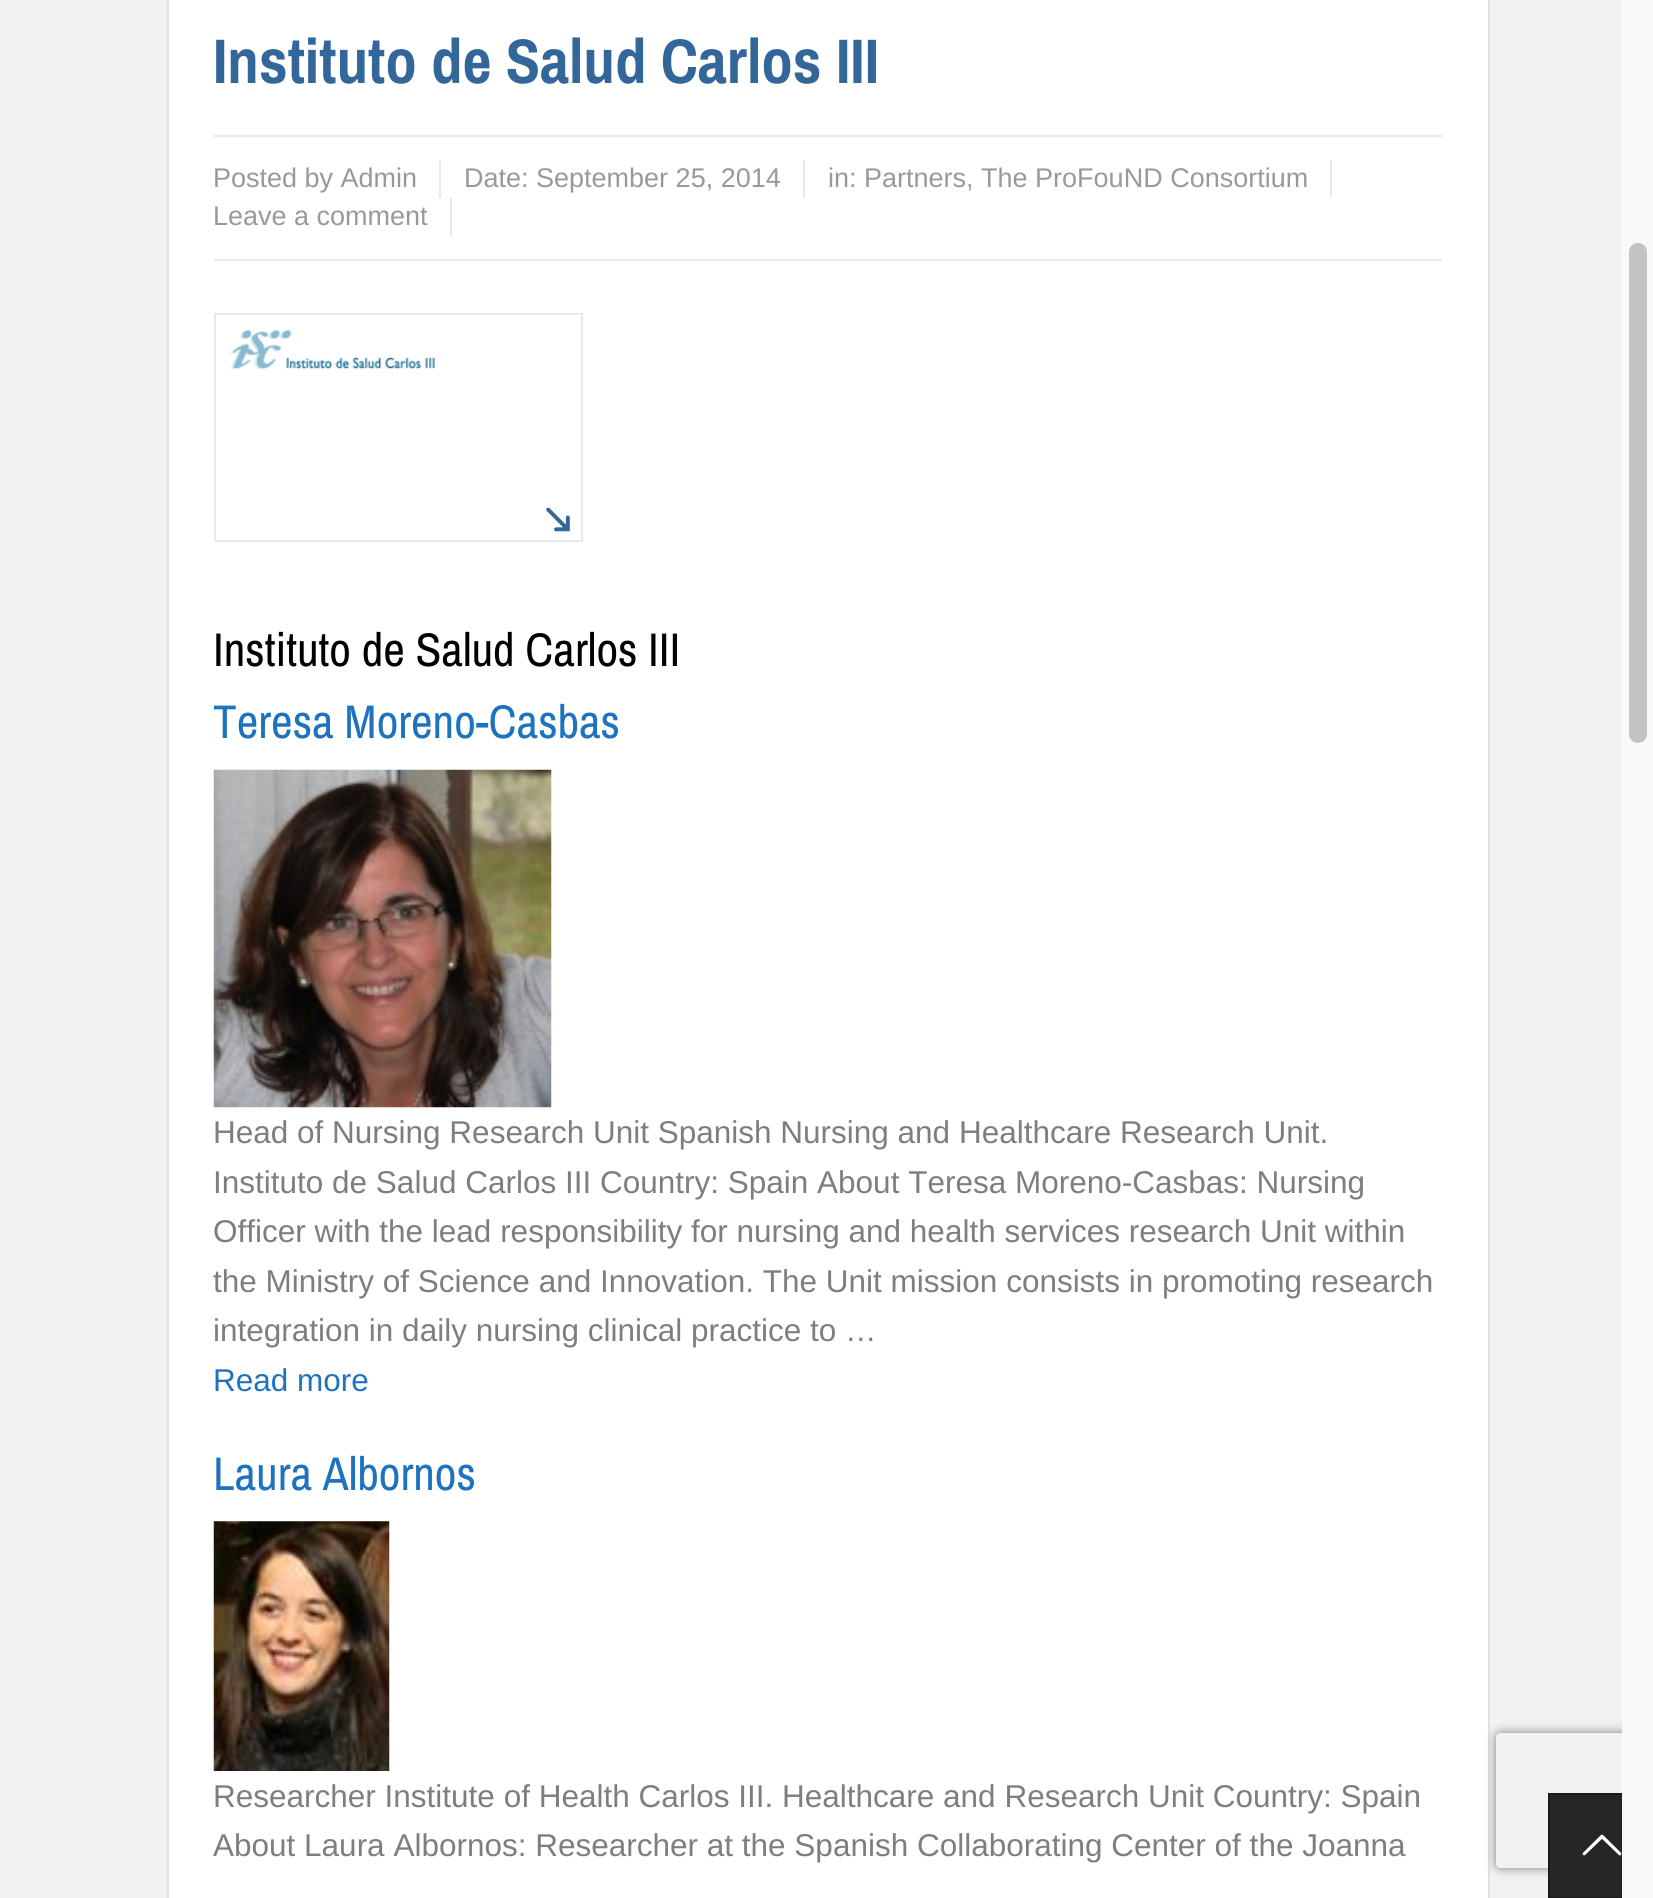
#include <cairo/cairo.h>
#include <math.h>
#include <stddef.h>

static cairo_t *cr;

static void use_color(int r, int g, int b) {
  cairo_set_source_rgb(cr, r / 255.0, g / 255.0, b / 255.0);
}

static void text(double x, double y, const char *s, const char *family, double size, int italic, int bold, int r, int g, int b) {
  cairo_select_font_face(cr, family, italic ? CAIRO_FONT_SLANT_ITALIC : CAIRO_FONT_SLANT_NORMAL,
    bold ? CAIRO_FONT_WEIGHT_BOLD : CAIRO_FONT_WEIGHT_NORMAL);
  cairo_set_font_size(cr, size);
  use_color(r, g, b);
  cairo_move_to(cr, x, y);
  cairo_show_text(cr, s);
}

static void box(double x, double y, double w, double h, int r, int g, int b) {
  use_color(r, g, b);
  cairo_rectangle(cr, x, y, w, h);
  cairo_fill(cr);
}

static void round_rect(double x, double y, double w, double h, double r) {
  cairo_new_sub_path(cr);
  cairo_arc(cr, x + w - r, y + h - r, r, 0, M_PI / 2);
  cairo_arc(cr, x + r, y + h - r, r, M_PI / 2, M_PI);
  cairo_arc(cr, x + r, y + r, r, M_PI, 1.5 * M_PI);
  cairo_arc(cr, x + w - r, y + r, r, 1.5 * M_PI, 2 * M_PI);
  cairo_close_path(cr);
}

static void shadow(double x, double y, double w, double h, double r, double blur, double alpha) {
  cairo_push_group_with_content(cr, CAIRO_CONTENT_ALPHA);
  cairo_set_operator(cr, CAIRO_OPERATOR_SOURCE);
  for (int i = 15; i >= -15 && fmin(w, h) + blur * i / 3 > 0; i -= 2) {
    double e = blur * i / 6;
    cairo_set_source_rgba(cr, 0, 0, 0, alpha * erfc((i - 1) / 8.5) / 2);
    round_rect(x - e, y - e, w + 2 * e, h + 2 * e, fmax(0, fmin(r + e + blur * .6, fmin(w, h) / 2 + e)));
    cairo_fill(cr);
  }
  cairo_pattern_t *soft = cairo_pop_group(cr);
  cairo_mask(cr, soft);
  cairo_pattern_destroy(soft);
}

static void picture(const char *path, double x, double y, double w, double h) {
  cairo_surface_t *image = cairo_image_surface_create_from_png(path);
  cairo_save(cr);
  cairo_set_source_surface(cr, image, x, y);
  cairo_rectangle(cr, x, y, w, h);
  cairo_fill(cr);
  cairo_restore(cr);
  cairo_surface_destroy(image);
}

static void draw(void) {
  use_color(242, 242, 242);
  cairo_paint(cr);
  use_color(255, 255, 255);
  cairo_rectangle(cr, 168, -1, 1321, 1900);
  cairo_fill_preserve(cr);
  use_color(225, 225, 225);
  cairo_stroke(cr);
  box(214, 135, 1228, 2, 233, 233, 233);
  box(214, 259, 1228, 2, 233, 233, 233);
  box(439, 160, 2, 38, 233, 233, 233);
  box(803, 160, 2, 38, 233, 233, 233);
  box(1330, 160, 2, 38, 233, 233, 233);
  box(450, 198, 2, 38, 233, 233, 233);
  cairo_rectangle(cr, 215, 314, 367, 227);
  cairo_stroke(cr);
  picture("img_01.png", 230, 329, 205, 41);
  picture("img_02.png", 546, 507, 24, 25);
  picture("img_03.png", 213, 769, 339, 339);
  picture("img_04.png", 213, 1521, 177, 250);
  cairo_save(cr);
  cairo_set_fill_rule(cr, CAIRO_FILL_RULE_EVEN_ODD);
  cairo_new_path(cr);
  cairo_move_to(cr, 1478, 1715);
  cairo_line_to(cr, 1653, 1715);
  cairo_line_to(cr, 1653, 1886);
  cairo_line_to(cr, 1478, 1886);
  cairo_close_path(cr);
  cairo_move_to(cr, 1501, 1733);
  cairo_line_to(cr, 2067, 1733);
  cairo_curve_to(cr, 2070, 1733, 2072, 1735, 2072, 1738);
  cairo_line_to(cr, 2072, 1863);
  cairo_curve_to(cr, 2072, 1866, 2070, 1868, 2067, 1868);
  cairo_line_to(cr, 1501, 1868);
  cairo_curve_to(cr, 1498, 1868, 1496, 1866, 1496, 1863);
  cairo_line_to(cr, 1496, 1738);
  cairo_curve_to(cr, 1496, 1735, 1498, 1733, 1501, 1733);
  cairo_close_path(cr);
  cairo_clip(cr);
  use_color(128, 128, 128);
  shadow(1496, 1733, 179, 135, 5, 5.5, 1);
  cairo_restore(cr);
  box(1550, 1795, 72, 102, 38, 38, 38);
  cairo_rectangle(cr, 1549, 1794, 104, 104);
  use_color(26, 26, 26);
  cairo_stroke(cr);
  picture("img_05.png", 1582, 1834, 40, 22);
  box(1622, 0, 31, 1898, 249, 249, 249);
  use_color(195, 195, 195);
  round_rect(1629, 243, 18, 500, 9);
  cairo_fill(cr);
  text(213, 83, "Instituto de Salud Carlos III", "Archivo Narrow", 63, 0, 1, 51, 102, 153);
  text(213, 187, "Posted by Admin", "Liberation Sans", 27, 0, 0, 153, 153, 153);
  text(464, 187, "Date: September 25, 2014", "Liberation Sans", 27, 0, 0, 153, 153, 153);
  text(828, 187, "in: Partners, The ProFouND Consortium", "Liberation Sans", 27, 0, 0, 153, 153, 153);
  text(213, 225, "Leave a comment", "Liberation Sans", 27, 0, 0, 153, 153, 153);
  text(213, 666, "Instituto de Salud Carlos III", "Archivo Narrow", 47.25, 0, 0, 0, 0, 0);
  text(213, 738, "Teresa Moreno-Casbas", "Archivo Narrow", 47.25, 0, 0, 30, 115, 190);
  text(213, 1143, "Head of Nursing Research Unit Spanish Nursing and Healthcare Research Unit.", "Liberation Sans", 31.5, 0, 0, 126, 126, 126);
  text(213, 1193, "Instituto de Salud Carlos III Country: Spain About Teresa Moreno-Casbas: Nursing", "Liberation Sans", 31.5, 0, 0, 126, 126, 126);
  text(213, 1242, "Officer with the lead responsibility for nursing and health services research Unit within", "Liberation Sans", 31.5, 0, 0, 126, 126, 126);
  text(213, 1292, "the Ministry of Science and Innovation. The Unit mission consists in promoting research", "Liberation Sans", 31.5, 0, 0, 126, 126, 126);
  text(213, 1341, "integration in daily nursing clinical practice to …", "Liberation Sans", 31.5, 0, 0, 126, 126, 126);
  text(213, 1391, "Read more", "Liberation Sans", 31.5, 0, 0, 30, 115, 190);
  text(213, 1490, "Laura Albornos", "Archivo Narrow", 47.25, 0, 0, 30, 115, 190);
  text(213, 1807, "Researcher Institute of Health Carlos III. Healthcare and Research Unit Country: Spain", "Liberation Sans", 31.5, 0, 0, 126, 126, 126);
  text(213, 1856, "About Laura Albornos: Researcher at the Spanish Collaborating Center of the Joanna", "Liberation Sans", 31.5, 0, 0, 126, 126, 126);
}

int main(void) {
  cairo_surface_t *surface = cairo_image_surface_create(CAIRO_FORMAT_RGB24, 1653, 1898);
  cr = cairo_create(surface);
  cairo_font_options_t *options = cairo_font_options_create();
  cairo_font_options_set_hint_metrics(options, CAIRO_HINT_METRICS_OFF);
  cairo_font_options_set_hint_style(options, CAIRO_HINT_STYLE_NONE);
  cairo_set_font_options(cr, options);
  cairo_set_miter_limit(cr, 4);
  draw();
  cairo_surface_write_to_png(surface, "out.png");
  cairo_font_options_destroy(options);
  cairo_destroy(cr);
  cairo_surface_destroy(surface);
  return 0;
}
